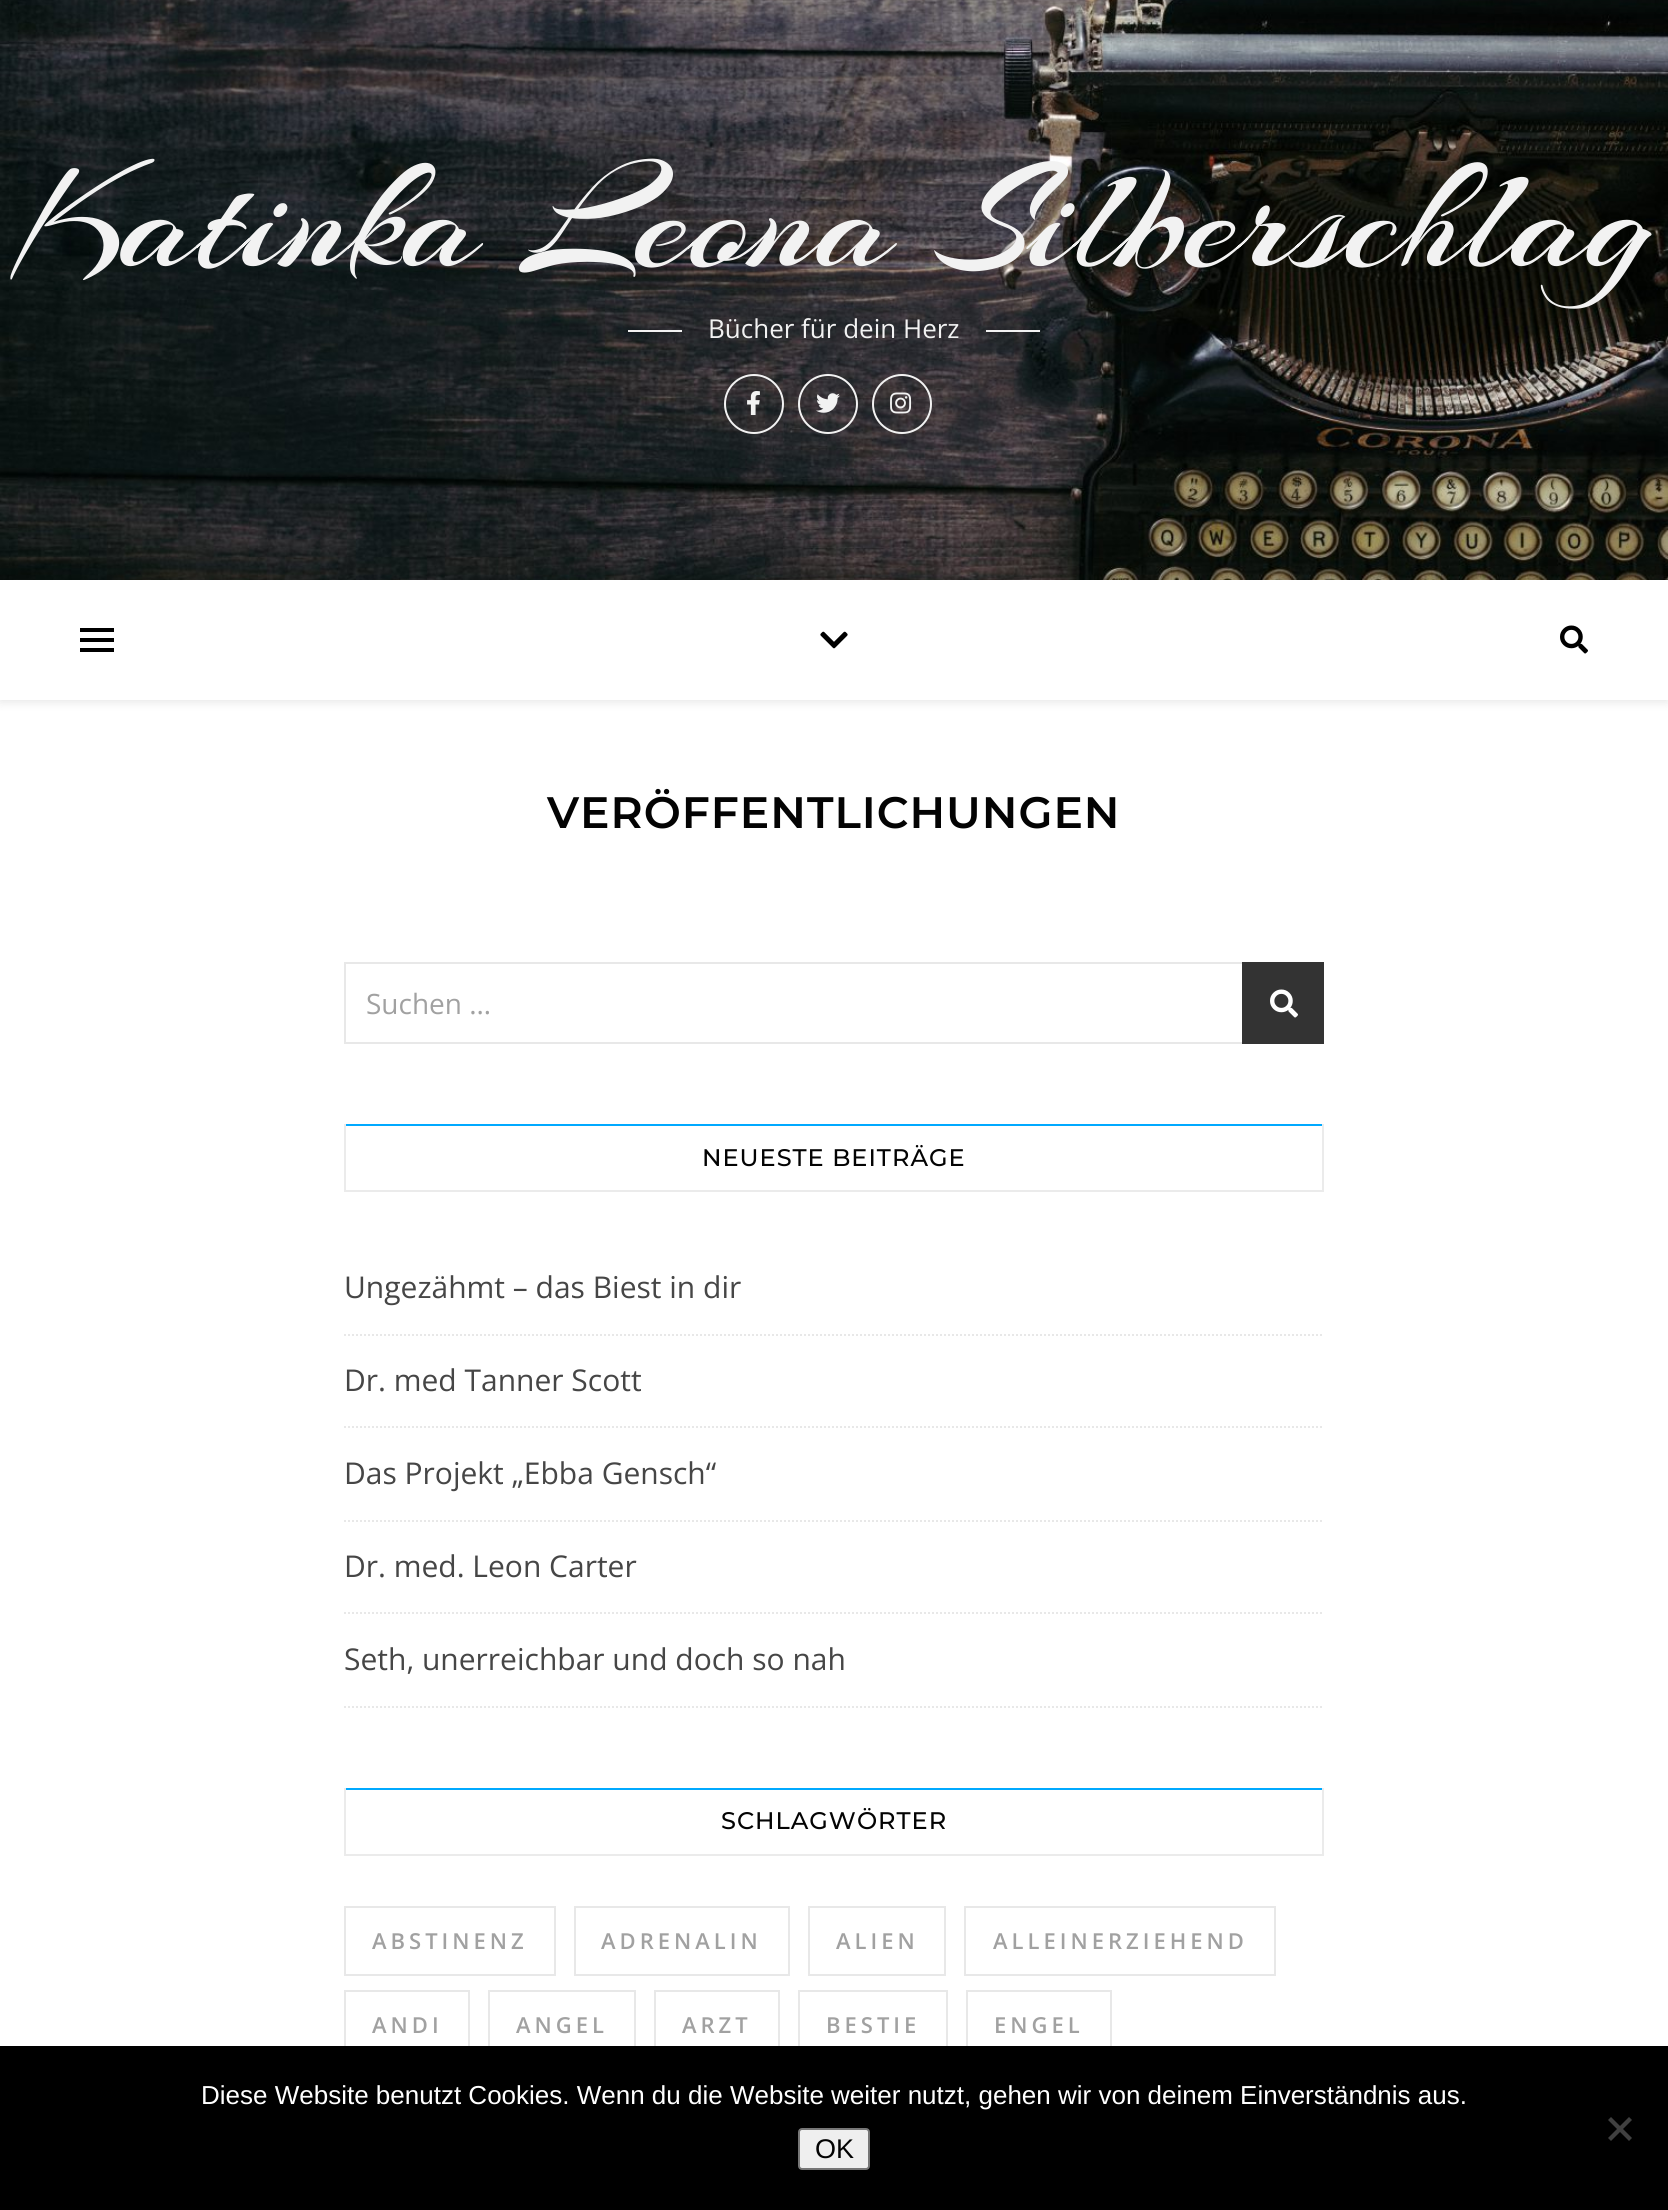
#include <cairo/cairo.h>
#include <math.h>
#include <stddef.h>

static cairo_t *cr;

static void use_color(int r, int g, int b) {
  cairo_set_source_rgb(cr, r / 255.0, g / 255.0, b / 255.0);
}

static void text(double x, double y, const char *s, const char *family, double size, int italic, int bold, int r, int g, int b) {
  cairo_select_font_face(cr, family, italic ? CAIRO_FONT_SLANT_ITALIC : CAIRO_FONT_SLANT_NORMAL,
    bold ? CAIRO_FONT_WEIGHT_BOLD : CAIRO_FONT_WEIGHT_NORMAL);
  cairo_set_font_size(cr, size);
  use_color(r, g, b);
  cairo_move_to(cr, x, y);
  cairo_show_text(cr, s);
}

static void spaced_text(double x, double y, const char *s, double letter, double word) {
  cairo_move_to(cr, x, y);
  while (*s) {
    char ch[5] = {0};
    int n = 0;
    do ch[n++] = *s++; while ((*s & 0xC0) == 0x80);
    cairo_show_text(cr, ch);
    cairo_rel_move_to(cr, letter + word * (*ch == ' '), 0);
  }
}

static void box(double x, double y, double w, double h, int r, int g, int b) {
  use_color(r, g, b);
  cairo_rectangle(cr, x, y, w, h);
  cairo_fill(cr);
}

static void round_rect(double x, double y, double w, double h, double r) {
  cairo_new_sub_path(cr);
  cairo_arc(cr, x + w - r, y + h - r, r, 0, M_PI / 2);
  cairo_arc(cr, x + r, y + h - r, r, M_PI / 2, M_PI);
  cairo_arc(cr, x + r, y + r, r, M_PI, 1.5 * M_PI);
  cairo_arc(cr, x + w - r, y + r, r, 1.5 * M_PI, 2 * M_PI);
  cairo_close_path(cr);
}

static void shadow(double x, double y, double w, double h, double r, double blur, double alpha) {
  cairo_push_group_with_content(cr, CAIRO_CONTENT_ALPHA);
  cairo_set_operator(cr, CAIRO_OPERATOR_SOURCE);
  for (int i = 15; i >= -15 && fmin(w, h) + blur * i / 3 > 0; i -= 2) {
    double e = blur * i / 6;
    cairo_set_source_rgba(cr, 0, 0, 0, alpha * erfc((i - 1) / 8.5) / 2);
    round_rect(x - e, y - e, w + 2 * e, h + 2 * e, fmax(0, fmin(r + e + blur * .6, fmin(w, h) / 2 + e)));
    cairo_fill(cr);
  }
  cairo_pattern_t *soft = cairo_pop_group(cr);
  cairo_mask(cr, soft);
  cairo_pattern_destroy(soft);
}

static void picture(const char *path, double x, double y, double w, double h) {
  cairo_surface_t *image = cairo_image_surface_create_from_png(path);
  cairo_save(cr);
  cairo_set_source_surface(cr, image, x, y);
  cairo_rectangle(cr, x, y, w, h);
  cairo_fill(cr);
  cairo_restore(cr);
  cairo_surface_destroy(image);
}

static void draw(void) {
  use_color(255, 255, 255);
  cairo_paint(cr);
  picture("img_01.png", 0, 0, 1668, 580);
  box(628, 330, 54, 2, 242, 242, 242);
  box(986, 330, 54, 2, 242, 242, 242);
  cairo_arc(cr, 754, 404, 29, 0, 2 * M_PI);
  cairo_stroke(cr);
  picture("img_02.png", 747, 391, 13, 24);
  cairo_arc(cr, 828, 404, 29, 0, 2 * M_PI);
  cairo_stroke(cr);
  picture("img_03.png", 816, 393, 24, 20);
  cairo_arc(cr, 902, 404, 29, 0, 2 * M_PI);
  cairo_stroke(cr);
  picture("img_04.png", 890, 392, 22, 22);
  cairo_save(cr);
  cairo_set_fill_rule(cr, CAIRO_FILL_RULE_EVEN_ODD);
  cairo_new_path(cr);
  cairo_move_to(cr, 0, 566);
  cairo_line_to(cr, 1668, 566);
  cairo_line_to(cr, 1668, 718);
  cairo_line_to(cr, 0, 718);
  cairo_close_path(cr);
  cairo_move_to(cr, 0, 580);
  cairo_line_to(cr, 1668, 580);
  cairo_line_to(cr, 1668, 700);
  cairo_line_to(cr, 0, 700);
  cairo_close_path(cr);
  cairo_clip(cr);
  use_color(0, 0, 0);
  shadow(0, 582, 1668, 120, 0, 5, 0.1);
  cairo_restore(cr);
  box(80, 628, 34, 4, 0, 0, 0);
  box(80, 638, 34, 4, 0, 0, 0);
  box(80, 648, 34, 4, 0, 0, 0);
  picture("img_05.png", 820, 631, 28, 18);
  picture("img_06.png", 1560, 625, 28, 29);
  cairo_rectangle(cr, 345, 963, 978, 80);
  use_color(232, 232, 232);
  cairo_stroke(cr);
  box(1242, 962, 82, 82, 51, 51, 51);
  picture("img_07.png", 1270, 989, 28, 29);
  box(344, 1124, 980, 2, 0, 169, 255);
  box(1322, 1124, 2, 68, 235, 235, 235);
  box(344, 1190, 980, 2, 235, 235, 235);
  box(344, 1124, 2, 68, 235, 235, 235);
  cairo_new_path(cr);
  cairo_move_to(cr, 344, 1335);
  cairo_line_to(cr, 1324, 1335);
  use_color(232, 232, 232);
  cairo_set_dash(cr, (double[]){2, 2}, 2, 0);
  cairo_stroke(cr);
  cairo_new_path(cr);
  cairo_move_to(cr, 344, 1427);
  cairo_line_to(cr, 1324, 1427);
  cairo_stroke(cr);
  cairo_new_path(cr);
  cairo_move_to(cr, 344, 1521);
  cairo_line_to(cr, 1324, 1521);
  cairo_stroke(cr);
  cairo_new_path(cr);
  cairo_move_to(cr, 344, 1613);
  cairo_line_to(cr, 1324, 1613);
  cairo_stroke(cr);
  cairo_new_path(cr);
  cairo_move_to(cr, 344, 1707);
  cairo_line_to(cr, 1324, 1707);
  cairo_stroke(cr);
  box(344, 1788, 980, 2, 0, 169, 255);
  box(1322, 1788, 2, 68, 235, 235, 235);
  box(344, 1854, 980, 2, 235, 235, 235);
  box(344, 1788, 2, 68, 235, 235, 235);
  cairo_rectangle(cr, 345, 1907, 210, 68);
  use_color(232, 232, 232);
  cairo_set_dash(cr, NULL, 0, 0);
  cairo_stroke(cr);
  cairo_rectangle(cr, 575, 1907, 214, 68);
  cairo_stroke(cr);
  cairo_rectangle(cr, 809, 1907, 136, 68);
  cairo_stroke(cr);
  cairo_rectangle(cr, 965, 1907, 310, 68);
  cairo_stroke(cr);
  cairo_rectangle(cr, 345, 1991, 124, 68);
  cairo_stroke(cr);
  cairo_rectangle(cr, 489, 1991, 146, 68);
  cairo_stroke(cr);
  cairo_rectangle(cr, 655, 1991, 124, 68);
  cairo_stroke(cr);
  cairo_rectangle(cr, 799, 1991, 148, 68);
  cairo_stroke(cr);
  cairo_rectangle(cr, 967, 1991, 144, 68);
  cairo_stroke(cr);
  box(0, 2046, 1668, 164, 0, 0, 0);
  use_color(64, 64, 64);
  cairo_new_path(cr);
  cairo_move_to(cr, 1629, 2117);
  cairo_line_to(cr, 1632, 2120);
  cairo_line_to(cr, 1611, 2141);
  cairo_line_to(cr, 1608, 2138);
  cairo_close_path(cr);
  cairo_fill(cr);
  cairo_new_path(cr);
  cairo_move_to(cr, 1608, 2120);
  cairo_line_to(cr, 1611, 2117);
  cairo_line_to(cr, 1632, 2138);
  cairo_line_to(cr, 1629, 2141);
  cairo_close_path(cr);
  cairo_fill(cr);
  use_color(239, 239, 239);
  round_rect(799, 2129, 70, 40, 3);
  cairo_fill_preserve(cr);
  use_color(118, 118, 118);
  cairo_stroke(cr);
  text(15, 266, "Katinka Leona Silberschlag", "Arizonia", 160, 0, 0, 242, 242, 242);
  text(708, 338, "Bücher für dein Herz", "Open Sans", 26, 0, 0, 242, 242, 242);
  cairo_select_font_face(cr, "Montserrat SemiBold", CAIRO_FONT_SLANT_NORMAL, CAIRO_FONT_WEIGHT_NORMAL);
  cairo_set_font_size(cr, 44);
  use_color(3, 3, 3);
  spaced_text(547, 828, "VERÖFFENTLICHUNGEN", 1, 0);
  text(366, 1014, "Suchen …", "Open Sans", 28, 0, 0, 161, 161, 161);
  cairo_select_font_face(cr, "Montserrat Medium", CAIRO_FONT_SLANT_NORMAL, CAIRO_FONT_WEIGHT_NORMAL);
  cairo_set_font_size(cr, 24);
  use_color(3, 3, 3);
  spaced_text(702, 1166, "NEUESTE BEITRÄGE", 1, 0);
  text(344, 1298, "Ungezähmt – das Biest in dir", "Open Sans", 30, 0, 0, 70, 70, 70);
  text(344, 1391, "Dr. med Tanner Scott", "Open Sans", 30, 0, 0, 70, 70, 70);
  text(344, 1484, "Das Projekt „Ebba Gensch“", "Open Sans", 30, 0, 0, 70, 70, 70);
  text(344, 1577, "Dr. med. Leon Carter", "Open Sans", 30, 0, 0, 70, 70, 70);
  text(344, 1670, "Seth, unerreichbar und doch so nah", "Open Sans", 30, 0, 0, 70, 70, 70);
  cairo_select_font_face(cr, "Montserrat Medium", CAIRO_FONT_SLANT_NORMAL, CAIRO_FONT_WEIGHT_NORMAL);
  cairo_set_font_size(cr, 24);
  use_color(3, 3, 3);
  spaced_text(721, 1829, "SCHLAGWÖRTER", 1, 0);
  cairo_select_font_face(cr, "Open Sans SemiBold", CAIRO_FONT_SLANT_NORMAL, CAIRO_FONT_WEIGHT_NORMAL);
  cairo_set_font_size(cr, 22);
  use_color(161, 161, 161);
  spaced_text(372, 1949, "ABSTINENZ", 4, 0);
  spaced_text(601, 1949, "ADRENALIN", 4, 0);
  spaced_text(836, 1949, "ALIEN", 4, 0);
  spaced_text(993, 1949, "ALLEINERZIEHEND", 4, 0);
  spaced_text(372, 2033, "ANDI", 4, 0);
  spaced_text(516, 2033, "ANGEL", 4, 0);
  spaced_text(682, 2033, "ARZT", 4, 0);
  spaced_text(826, 2033, "BESTIE", 4, 0);
  spaced_text(994, 2033, "ENGEL", 4, 0);
  text(201, 2104, "Diese Website benutzt Cookies. Wenn du die Website weiter nutzt, gehen wir von deinem Einverständnis aus.", "Liberation Sans", 26, 0, 0, 255, 255, 255);
  text(815, 2158, "OK", "Liberation Sans", 27, 0, 0, 3, 3, 3);
}

int main(void) {
  cairo_surface_t *surface = cairo_image_surface_create(CAIRO_FORMAT_RGB24, 1668, 2210);
  cr = cairo_create(surface);
  cairo_font_options_t *options = cairo_font_options_create();
  cairo_font_options_set_hint_metrics(options, CAIRO_HINT_METRICS_OFF);
  cairo_font_options_set_hint_style(options, CAIRO_HINT_STYLE_NONE);
  cairo_set_font_options(cr, options);
  cairo_set_miter_limit(cr, 4);
  draw();
  cairo_surface_write_to_png(surface, "out.png");
  cairo_font_options_destroy(options);
  cairo_destroy(cr);
  cairo_surface_destroy(surface);
  return 0;
}
